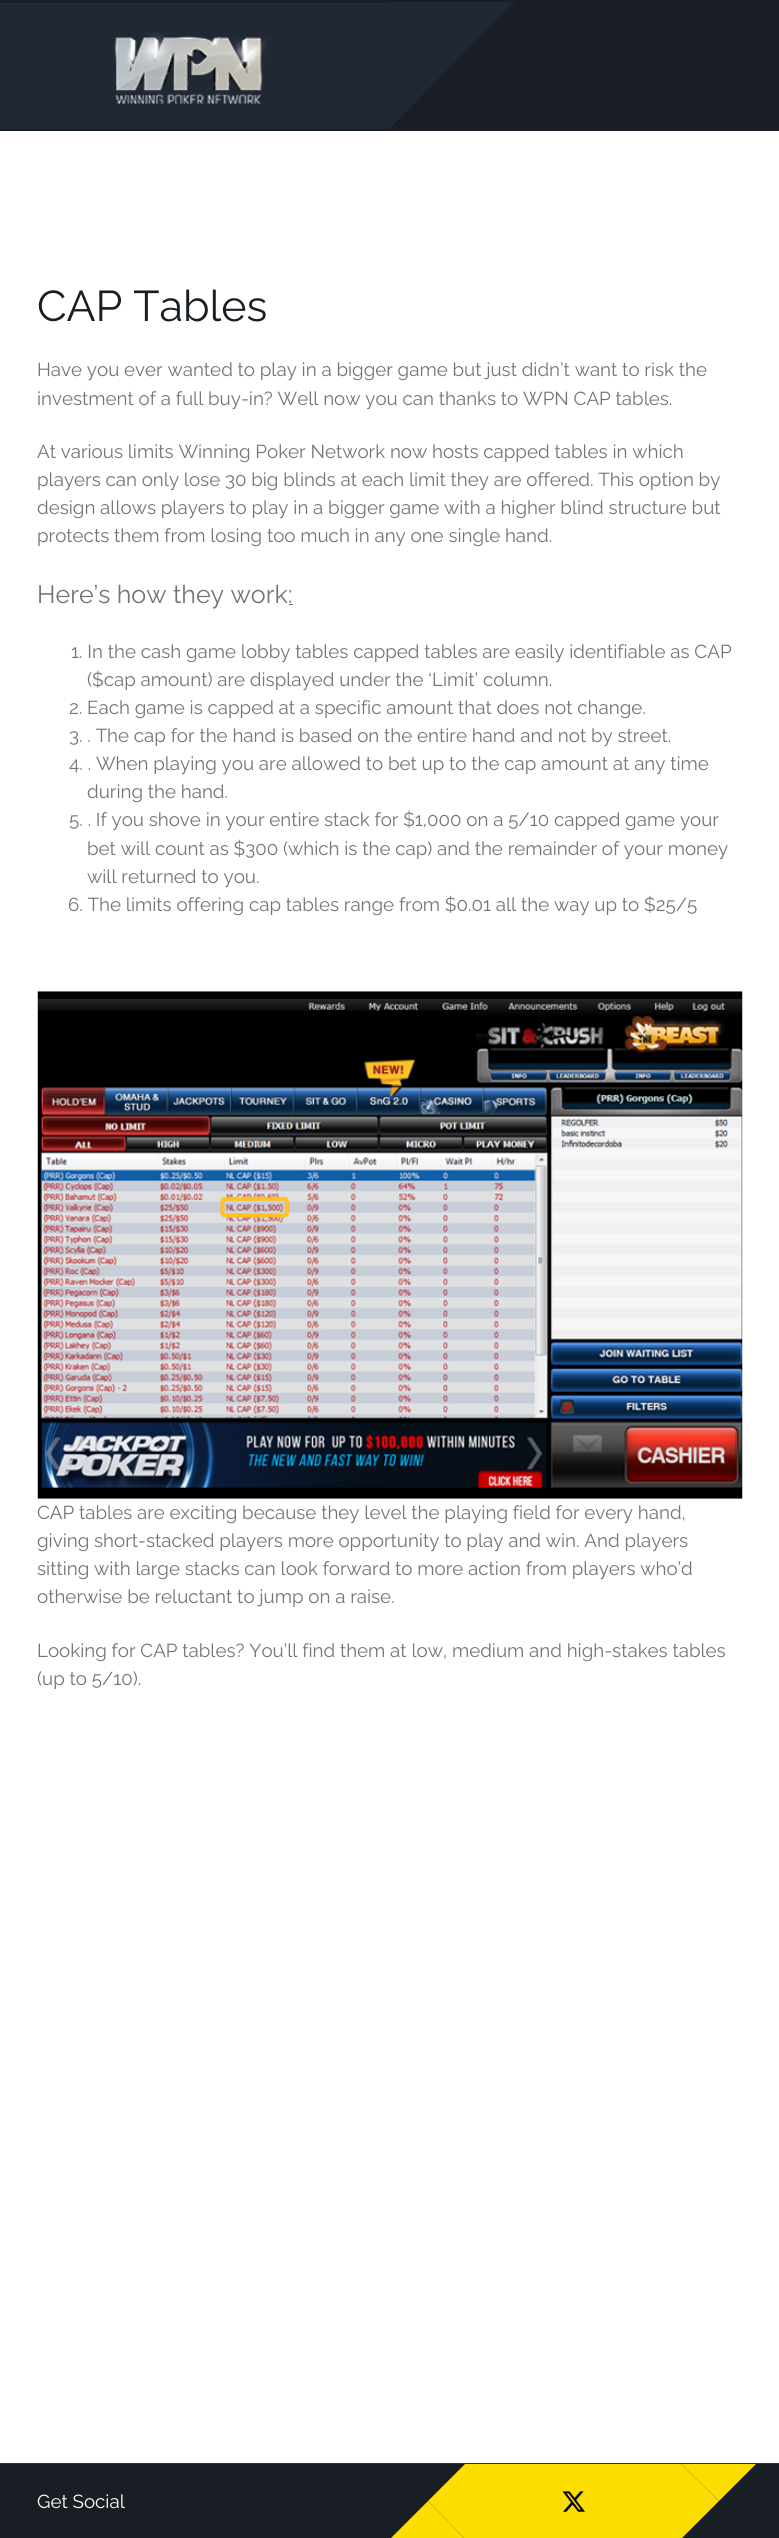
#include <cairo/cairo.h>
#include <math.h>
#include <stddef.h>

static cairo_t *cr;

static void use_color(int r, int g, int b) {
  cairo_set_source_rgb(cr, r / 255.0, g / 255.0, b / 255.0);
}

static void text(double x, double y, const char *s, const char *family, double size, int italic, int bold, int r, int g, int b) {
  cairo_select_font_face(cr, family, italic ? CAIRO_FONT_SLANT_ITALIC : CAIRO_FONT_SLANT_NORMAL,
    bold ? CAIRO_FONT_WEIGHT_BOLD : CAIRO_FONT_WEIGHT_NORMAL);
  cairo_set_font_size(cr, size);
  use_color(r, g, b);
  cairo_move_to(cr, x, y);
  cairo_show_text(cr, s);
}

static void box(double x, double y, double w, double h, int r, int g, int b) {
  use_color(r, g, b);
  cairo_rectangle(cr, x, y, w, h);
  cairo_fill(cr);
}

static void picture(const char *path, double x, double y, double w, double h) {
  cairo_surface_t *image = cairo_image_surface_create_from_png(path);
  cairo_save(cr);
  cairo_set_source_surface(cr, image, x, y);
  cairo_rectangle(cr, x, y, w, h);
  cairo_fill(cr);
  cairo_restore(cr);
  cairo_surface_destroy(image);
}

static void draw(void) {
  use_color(255, 255, 255);
  cairo_paint(cr);
  box(0, 0, 779, 131, 25, 30, 36);
  box(0, 3, 390, 126, 31, 40, 51);
  picture("img_01.png", 114, 32, 154, 72);
  cairo_new_path(cr);
  cairo_move_to(cr, 390, 2);
  cairo_line_to(cr, 515, 2);
  cairo_line_to(cr, 452, 65);
  cairo_close_path(cr);
  cairo_fill(cr);
  cairo_new_path(cr);
  cairo_move_to(cr, 390, 128);
  cairo_line_to(cr, 390, 2);
  cairo_line_to(cr, 452, 65);
  cairo_close_path(cr);
  cairo_fill(cr);
  box(289, 604, 4, 1, 116, 116, 116);
  picture("img_02.png", 37, 991, 706, 508);
  box(0, 2464, 779, 74, 25, 30, 36);
  box(0, 2463, 779, 1, 51, 51, 51);
  use_color(252, 221, 0);
  cairo_new_path(cr);
  cairo_move_to(cr, 465, 2464);
  cairo_line_to(cr, 465, 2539);
  cairo_line_to(cr, 428, 2501);
  cairo_close_path(cr);
  cairo_fill(cr);
  cairo_new_path(cr);
  cairo_move_to(cr, 465, 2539);
  cairo_line_to(cr, 390, 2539);
  cairo_line_to(cr, 428, 2501);
  cairo_close_path(cr);
  cairo_fill(cr);
  box(465, 2464, 216, 74, 252, 221, 0);
  picture("img_03.png", 562, 2491, 23, 21);
  cairo_new_path(cr);
  cairo_move_to(cr, 681, 2464);
  cairo_line_to(cr, 756, 2464);
  cairo_line_to(cr, 719, 2501);
  cairo_close_path(cr);
  cairo_fill(cr);
  cairo_new_path(cr);
  cairo_move_to(cr, 681, 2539);
  cairo_line_to(cr, 681, 2464);
  cairo_line_to(cr, 719, 2501);
  cairo_close_path(cr);
  cairo_fill(cr);
  text(37, 321, "CAP Tables", "Raleway", 43, 0, 0, 25, 30, 36);
  text(37, 376, "Have you ever wanted to play in a bigger game but just didn’t want to risk the", "Raleway", 18.75, 0, 0, 116, 116, 116);
  text(37, 405, "investment of a full buy-in? Well now you can thanks to WPN CAP tables.", "Raleway", 18.75, 0, 0, 116, 116, 116);
  text(37, 458, "At various limits Winning Poker Network now hosts capped tables in which", "Raleway", 18.75, 0, 0, 116, 116, 116);
  text(37, 486, "players can only lose 30 big blinds at each limit they are offered. This option by", "Raleway", 18.75, 0, 0, 116, 116, 116);
  text(37, 514, "design allows players to play in a bigger game with a higher blind structure but", "Raleway", 18.75, 0, 0, 116, 116, 116);
  text(37, 542, "protects them from losing too much in any one single hand.", "Raleway", 18.75, 0, 0, 116, 116, 116);
  text(37, 603, "Here’s how they work:", "Raleway", 25, 0, 0, 116, 116, 116);
  text(71, 658, "1. In the cash game lobby tables capped tables are easily identifiable as CAP", "Raleway", 18.75, 0, 0, 116, 116, 116);
  text(87, 686, "($cap amount) are displayed under the ‘Limit’ column.", "Raleway", 18.75, 0, 0, 116, 116, 116);
  text(69, 714, "2. Each game is capped at a specific amount that does not change.", "Raleway", 18.75, 0, 0, 116, 116, 116);
  text(69, 742, "3. . The cap for the hand is based on the entire hand and not by street.", "Raleway", 18.75, 0, 0, 116, 116, 116);
  text(69, 770, "4. . When playing you are allowed to bet up to the cap amount at any time", "Raleway", 18.75, 0, 0, 116, 116, 116);
  text(87, 798, "during the hand.", "Raleway", 18.75, 0, 0, 116, 116, 116);
  text(69, 826, "5. . If you shove in your entire stack for $1,000 on a 5/10 capped game your", "Raleway", 18.75, 0, 0, 116, 116, 116);
  text(87, 855, "bet will count as $300 (which is the cap) and the remainder of your money", "Raleway", 18.75, 0, 0, 116, 116, 116);
  text(87, 883, "will returned to you.", "Raleway", 18.75, 0, 0, 116, 116, 116);
  text(68, 911, "6. The limits offering cap tables range from $0.01 all the way up to $25/5", "Raleway", 18.75, 0, 0, 116, 116, 116);
  text(37, 1519, "CAP tables are exciting because they level the playing field for every hand,", "Raleway", 18.75, 0, 0, 116, 116, 116);
  text(37, 1547, "giving short-stacked players more opportunity to play and win. And players", "Raleway", 18.75, 0, 0, 116, 116, 116);
  text(37, 1575, "sitting with large stacks can look forward to more action from players who’d", "Raleway", 18.75, 0, 0, 116, 116, 116);
  text(37, 1603, "otherwise be reluctant to jump on a raise.", "Raleway", 18.75, 0, 0, 116, 116, 116);
  text(37, 1657, "Looking for CAP tables? You’ll find them at low, medium and high-stakes tables", "Raleway", 18.75, 0, 0, 116, 116, 116);
  text(37, 1685, "(up to 5/10).", "Raleway", 18.75, 0, 0, 116, 116, 116);
  text(37, 2508, "Get Social", "Raleway", 18.75, 0, 0, 255, 255, 255);
}

int main(void) {
  cairo_surface_t *surface = cairo_image_surface_create(CAIRO_FORMAT_RGB24, 779, 2538);
  cr = cairo_create(surface);
  cairo_font_options_t *options = cairo_font_options_create();
  cairo_font_options_set_hint_metrics(options, CAIRO_HINT_METRICS_OFF);
  cairo_font_options_set_hint_style(options, CAIRO_HINT_STYLE_NONE);
  cairo_set_font_options(cr, options);
  cairo_set_miter_limit(cr, 4);
  draw();
  cairo_surface_write_to_png(surface, "out.png");
  cairo_font_options_destroy(options);
  cairo_destroy(cr);
  cairo_surface_destroy(surface);
  return 0;
}
